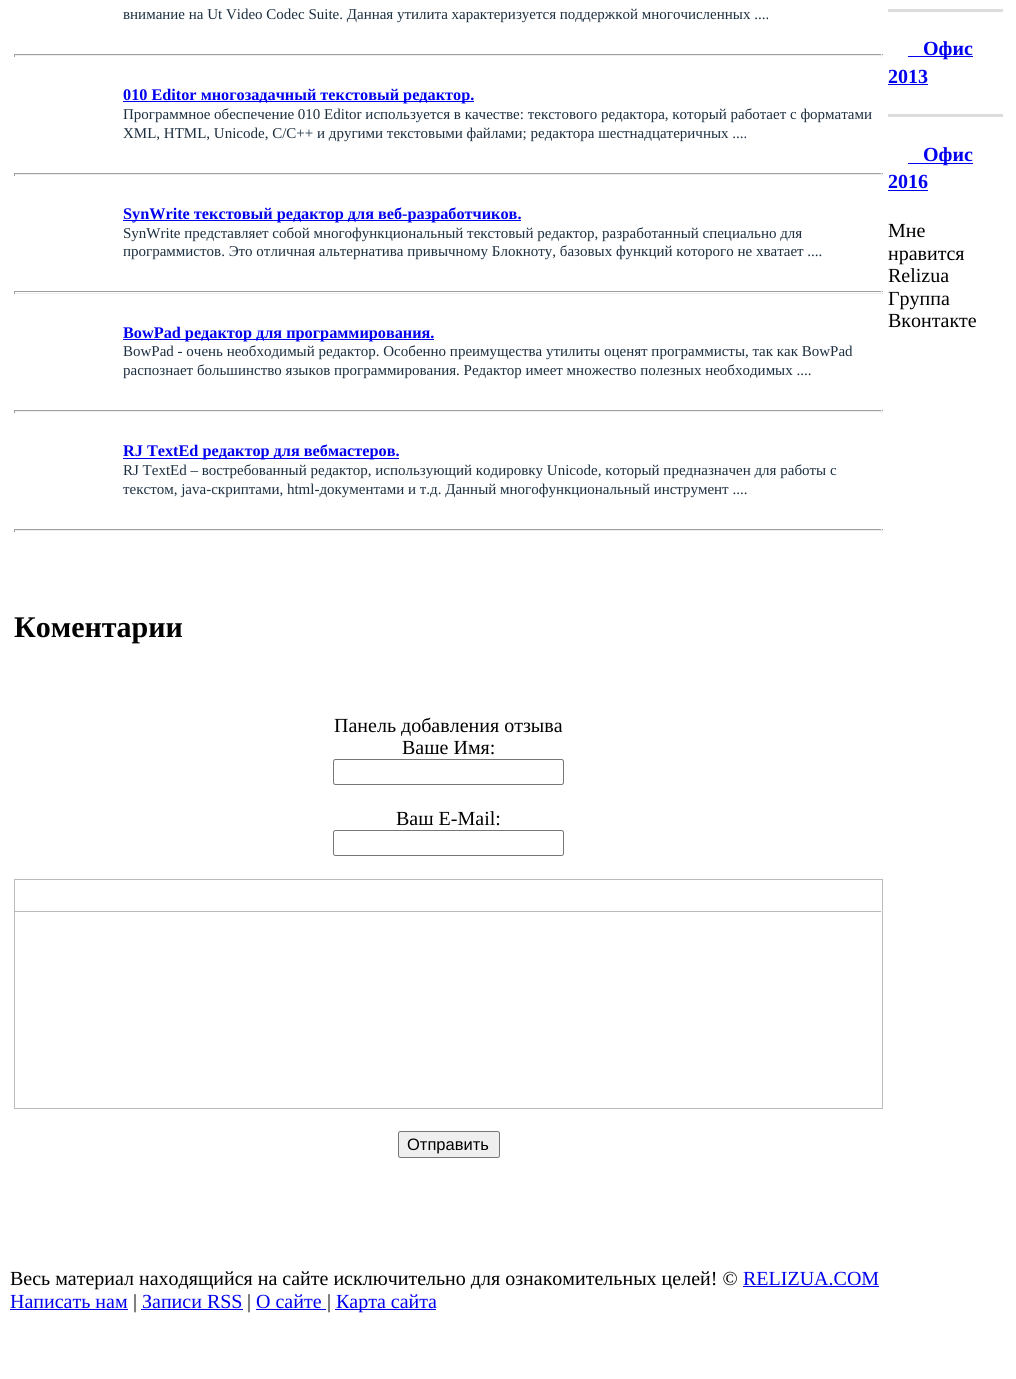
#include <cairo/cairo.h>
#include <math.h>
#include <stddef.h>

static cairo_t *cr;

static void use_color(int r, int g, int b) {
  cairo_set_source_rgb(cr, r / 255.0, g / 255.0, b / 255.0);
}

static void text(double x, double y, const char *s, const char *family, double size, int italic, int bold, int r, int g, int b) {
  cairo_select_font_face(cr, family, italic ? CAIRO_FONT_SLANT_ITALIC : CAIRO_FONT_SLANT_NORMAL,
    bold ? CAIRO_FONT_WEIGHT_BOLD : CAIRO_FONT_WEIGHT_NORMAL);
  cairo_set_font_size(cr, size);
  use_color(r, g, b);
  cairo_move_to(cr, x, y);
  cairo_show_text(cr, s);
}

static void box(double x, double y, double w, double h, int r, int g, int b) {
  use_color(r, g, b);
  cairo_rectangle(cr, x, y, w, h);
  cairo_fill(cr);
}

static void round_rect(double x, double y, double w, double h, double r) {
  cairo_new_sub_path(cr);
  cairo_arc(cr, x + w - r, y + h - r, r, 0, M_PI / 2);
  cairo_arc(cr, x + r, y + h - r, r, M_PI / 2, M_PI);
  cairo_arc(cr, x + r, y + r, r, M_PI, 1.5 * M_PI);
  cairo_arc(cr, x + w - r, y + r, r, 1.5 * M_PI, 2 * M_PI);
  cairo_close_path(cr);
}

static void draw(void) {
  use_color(255, 255, 255);
  cairo_paint(cr);
  box(14, 54, 869, 1, 159, 159, 159);
  box(881, 54, 1, 3, 238, 238, 238);
  box(14, 55, 869, 1, 238, 238, 238);
  box(14, 54, 1, 3, 159, 159, 159);
  box(123, 101, 351, 1, 0, 0, 238);
  box(14, 173, 869, 1, 159, 159, 159);
  box(881, 173, 1, 3, 238, 238, 238);
  box(14, 174, 869, 1, 238, 238, 238);
  box(14, 173, 1, 3, 159, 159, 159);
  box(123, 220, 398, 1, 0, 0, 238);
  box(14, 291, 869, 1, 159, 159, 159);
  box(881, 291, 1, 3, 238, 238, 238);
  box(14, 293, 869, 1, 238, 238, 238);
  box(14, 291, 1, 3, 159, 159, 159);
  box(123, 339, 311, 1, 0, 0, 238);
  box(14, 410, 869, 1, 159, 159, 159);
  box(881, 410, 1, 3, 238, 238, 238);
  box(14, 411, 869, 1, 238, 238, 238);
  box(14, 410, 1, 3, 159, 159, 159);
  box(123, 458, 276, 1, 0, 0, 238);
  box(14, 529, 869, 1, 159, 159, 159);
  box(881, 529, 1, 3, 238, 238, 238);
  box(14, 530, 869, 1, 238, 238, 238);
  box(14, 529, 1, 3, 159, 159, 159);
  round_rect(333.5, 759.5, 230, 25, 2);
  use_color(118, 118, 118);
  cairo_set_line_width(cr, 1);
  cairo_stroke(cr);
  round_rect(333.5, 830.5, 230, 25, 2);
  cairo_stroke(cr);
  cairo_rectangle(cr, 14.5, 879.5, 868, 229);
  use_color(187, 187, 187);
  cairo_stroke(cr);
  box(15, 911, 866, 1, 187, 187, 187);
  use_color(239, 239, 239);
  round_rect(398.5, 1131.5, 101, 26, 2);
  cairo_fill_preserve(cr);
  use_color(118, 118, 118);
  cairo_stroke(cr);
  box(888, 9, 115, 3, 220, 220, 220);
  box(908, 56, 65, 1, 0, 0, 238);
  box(888, 84, 40, 1, 0, 0, 238);
  box(888, 114, 115, 3, 220, 220, 220);
  box(908, 163, 65, 1, 0, 0, 238);
  box(888, 190, 40, 1, 0, 0, 238);
  box(743, 1286, 136, 1, 0, 0, 238);
  box(10, 1309, 118, 1, 0, 0, 238);
  box(141, 1309, 102, 1, 0, 0, 238);
  box(256, 1309, 70, 1, 0, 0, 238);
  box(335, 1309, 101, 1, 0, 0, 238);
  text(123, 19, "внимание на Ut Video Codec Suite. Данная утилита характеризуется поддержкой многочисленных ....", "Liberation Serif", 15, 0, 0, 28, 47, 64);
  text(123, 100, "010 Editor многозадачный текстовый редактор.", "Liberation Serif", 16.25, 0, 1, 0, 0, 238);
  text(123, 119, "Программное обеспечение 010 Editor используется в качестве: текстового редактора, который работает с форматами", "Liberation Serif", 15, 0, 0, 28, 47, 64);
  text(123, 138, "XML, HTML, Unicode, C/C++ и другими текстовыми файлами; редактора шестнадцатеричных ....", "Liberation Serif", 15, 0, 0, 28, 47, 64);
  text(123, 219, "SynWrite текстовый редактор для веб-разработчиков.", "Liberation Serif", 16.25, 0, 1, 0, 0, 238);
  text(123, 238, "SynWrite представляет собой многофункциональный текстовый редактор, разработанный специально для", "Liberation Serif", 15, 0, 0, 28, 47, 64);
  text(123, 256, "программистов. Это отличная альтернатива привычному Блокноту, базовых функций которого не хватает ....", "Liberation Serif", 15, 0, 0, 28, 47, 64);
  text(123, 338, "BowPad редактор для программирования.", "Liberation Serif", 16.25, 0, 1, 0, 0, 238);
  text(123, 356, "BowPad - очень необходимый редактор. Особенно преимущества утилиты оценят программисты, так как BowPad", "Liberation Serif", 15, 0, 0, 28, 47, 64);
  text(123, 375, "распознает большинство языков программирования. Редактор имеет множество полезных необходимых ....", "Liberation Serif", 15, 0, 0, 28, 47, 64);
  text(123, 456, "RJ TextEd редактор для вебмастеров.", "Liberation Serif", 16.25, 0, 1, 0, 0, 238);
  text(123, 475, "RJ TextEd – востребованный редактор, использующий кодировку Unicode, который предназначен для работы с", "Liberation Serif", 15, 0, 0, 28, 47, 64);
  text(123, 494, "текстом, java-скриптами, html-документами и т.д. Данный многофункциональный инструмент ....", "Liberation Serif", 15, 0, 0, 28, 47, 64);
  text(14, 637, "Коментарии", "Liberation Serif", 30, 0, 1, 0, 0, 0);
  text(334, 732, "Панель добавления отзыва", "Liberation Serif", 20, 0, 0, 0, 0, 0);
  text(402, 754, "Ваше Имя:", "Liberation Serif", 20, 0, 0, 0, 0, 0);
  text(396, 825, "Ваш E-Mail:", "Liberation Serif", 20, 0, 0, 0, 0, 0);
  text(407, 1150, "Отправить", "Liberation Sans", 16.5, 0, 0, 0, 0, 0);
  text(923, 55, "Офис", "Liberation Serif", 20, 0, 1, 0, 0, 238);
  text(888, 83, "2013", "Liberation Serif", 20, 0, 1, 0, 0, 238);
  text(923, 161, "Офис", "Liberation Serif", 20, 0, 1, 0, 0, 238);
  text(888, 188, "2016", "Liberation Serif", 20, 0, 1, 0, 0, 238);
  text(888, 237, "Мне", "Liberation Serif", 20, 0, 0, 0, 0, 0);
  text(888, 260, "нравится", "Liberation Serif", 20, 0, 0, 0, 0, 0);
  text(888, 282, "Relizua", "Liberation Serif", 20, 0, 0, 0, 0, 0);
  text(888, 305, "Группа", "Liberation Serif", 20, 0, 0, 0, 0, 0);
  text(888, 327, "Вконтакте", "Liberation Serif", 20, 0, 0, 0, 0, 0);
  text(10, 1285, "Весь материал находящийся на сайте исключительно для ознакомительных целей! ©", "Liberation Serif", 20, 0, 0, 0, 0, 0);
  text(743, 1285, "RELIZUA.COM", "Liberation Serif", 20, 0, 0, 0, 0, 238);
  text(10, 1308, "Написать нам", "Liberation Serif", 20, 0, 0, 0, 0, 238);
  text(133, 1308, "|", "Liberation Serif", 20, 0, 0, 0, 0, 0);
  text(142, 1308, "Записи RSS", "Liberation Serif", 20, 0, 0, 0, 0, 238);
  text(247, 1308, "|", "Liberation Serif", 20, 0, 0, 0, 0, 0);
  text(256, 1308, "О сайте", "Liberation Serif", 20, 0, 0, 0, 0, 238);
  text(327, 1308, "|", "Liberation Serif", 20, 0, 0, 0, 0, 0);
  text(336, 1308, "Карта сайта", "Liberation Serif", 20, 0, 0, 0, 0, 238);
}

int main(void) {
  cairo_surface_t *surface = cairo_image_surface_create(CAIRO_FORMAT_RGB24, 1016, 1379);
  cr = cairo_create(surface);
  cairo_font_options_t *options = cairo_font_options_create();
  cairo_font_options_set_hint_metrics(options, CAIRO_HINT_METRICS_OFF);
  cairo_font_options_set_hint_style(options, CAIRO_HINT_STYLE_NONE);
  cairo_set_font_options(cr, options);
  cairo_set_miter_limit(cr, 4);
  draw();
  cairo_surface_write_to_png(surface, "out.png");
  cairo_font_options_destroy(options);
  cairo_destroy(cr);
  cairo_surface_destroy(surface);
  return 0;
}
